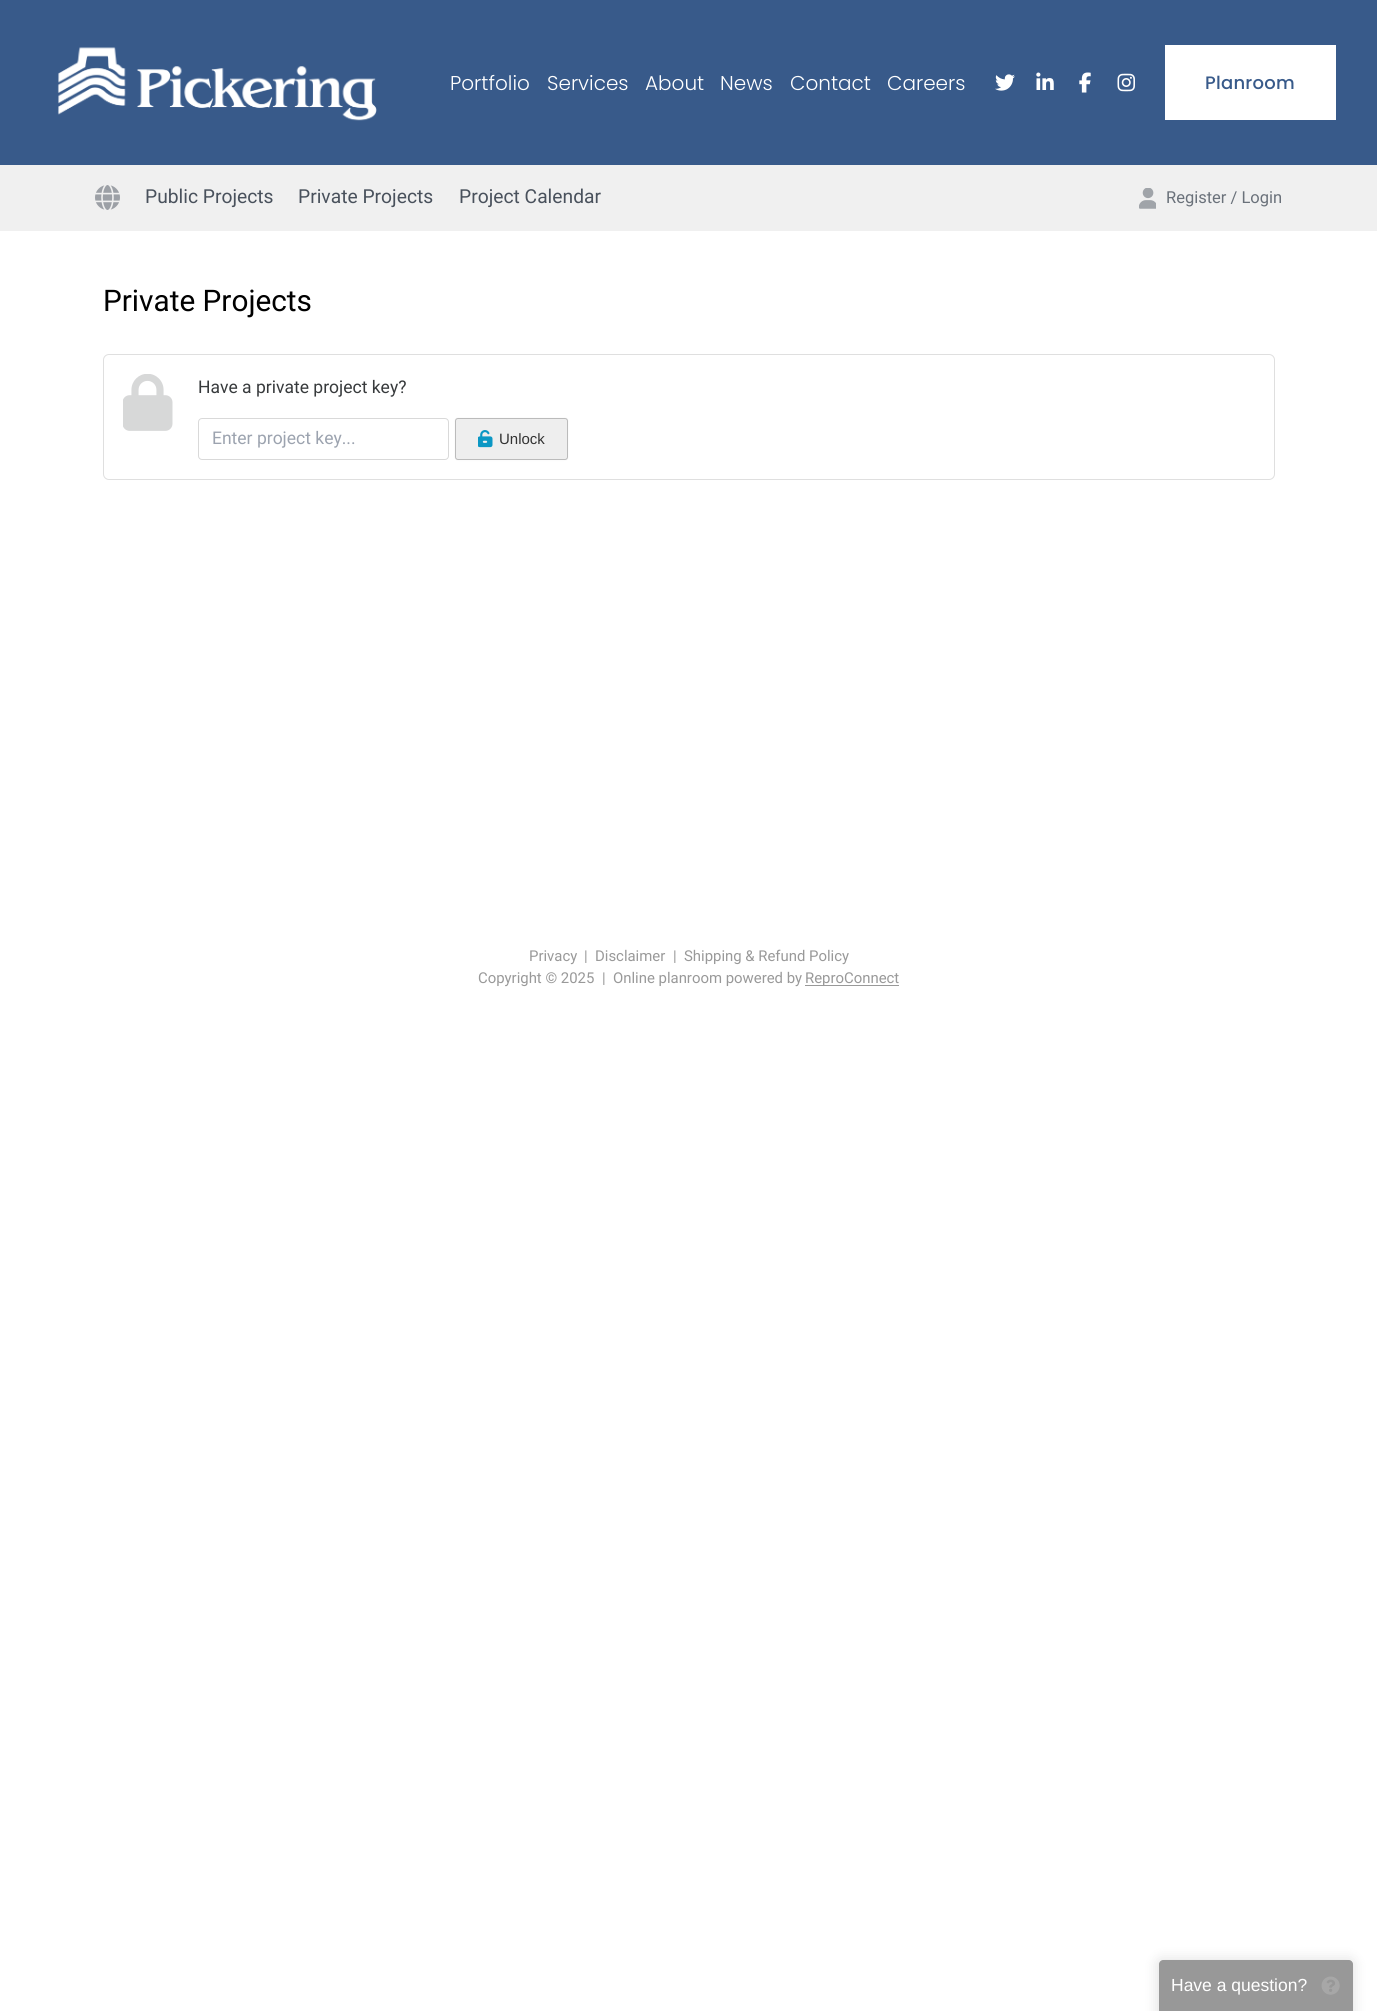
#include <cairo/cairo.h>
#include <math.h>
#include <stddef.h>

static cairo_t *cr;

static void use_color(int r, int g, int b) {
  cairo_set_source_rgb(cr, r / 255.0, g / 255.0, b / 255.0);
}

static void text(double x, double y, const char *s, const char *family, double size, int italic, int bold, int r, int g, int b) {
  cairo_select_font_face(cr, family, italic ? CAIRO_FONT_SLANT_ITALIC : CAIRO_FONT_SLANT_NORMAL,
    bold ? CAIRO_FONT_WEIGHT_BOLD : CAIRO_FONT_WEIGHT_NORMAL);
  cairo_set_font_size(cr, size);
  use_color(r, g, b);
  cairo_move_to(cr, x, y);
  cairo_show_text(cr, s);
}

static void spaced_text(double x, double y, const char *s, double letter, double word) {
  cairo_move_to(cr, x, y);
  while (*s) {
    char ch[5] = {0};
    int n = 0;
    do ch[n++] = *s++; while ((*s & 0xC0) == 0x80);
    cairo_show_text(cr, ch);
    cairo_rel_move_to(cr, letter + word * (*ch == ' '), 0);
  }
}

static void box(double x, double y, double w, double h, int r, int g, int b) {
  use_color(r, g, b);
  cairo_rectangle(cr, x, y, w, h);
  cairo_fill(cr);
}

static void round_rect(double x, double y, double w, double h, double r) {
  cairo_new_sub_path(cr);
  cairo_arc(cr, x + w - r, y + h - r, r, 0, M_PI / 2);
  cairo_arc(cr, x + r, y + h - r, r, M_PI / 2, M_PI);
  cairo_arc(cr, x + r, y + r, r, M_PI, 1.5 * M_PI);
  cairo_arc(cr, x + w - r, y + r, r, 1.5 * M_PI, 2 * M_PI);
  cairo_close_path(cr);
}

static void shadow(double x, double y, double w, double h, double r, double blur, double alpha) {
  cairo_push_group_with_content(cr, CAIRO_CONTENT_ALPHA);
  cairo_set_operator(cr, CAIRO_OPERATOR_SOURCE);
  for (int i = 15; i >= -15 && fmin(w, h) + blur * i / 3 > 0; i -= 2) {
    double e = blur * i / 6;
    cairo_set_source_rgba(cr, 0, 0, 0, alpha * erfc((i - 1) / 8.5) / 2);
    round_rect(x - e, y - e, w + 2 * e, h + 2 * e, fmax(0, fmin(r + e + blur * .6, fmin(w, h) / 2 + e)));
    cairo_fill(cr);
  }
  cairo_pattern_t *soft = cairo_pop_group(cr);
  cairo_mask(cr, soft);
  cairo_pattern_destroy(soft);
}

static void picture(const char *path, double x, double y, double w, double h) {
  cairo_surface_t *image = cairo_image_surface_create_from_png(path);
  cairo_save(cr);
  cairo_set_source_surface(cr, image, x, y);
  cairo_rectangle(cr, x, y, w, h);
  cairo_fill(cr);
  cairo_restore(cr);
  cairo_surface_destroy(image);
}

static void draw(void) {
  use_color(255, 255, 255);
  cairo_paint(cr);
  box(0, 0, 1377, 165, 56, 90, 138);
  picture("img_01.png", 57, 47, 320, 74);
  picture("img_02.png", 995, 74, 20, 17);
  picture("img_03.png", 1036, 72, 18, 18);
  picture("img_04.png", 1079, 72, 12, 21);
  picture("img_05.png", 1117, 73, 18, 19);
  box(1165, 45, 171, 75, 255, 255, 255);
  box(0, 165, 1377, 66, 240, 240, 240);
  picture("img_06.png", 95, 185, 25, 25);
  picture("img_07.png", 1139, 188, 17, 21);
  round_rect(103.5, 354.5, 1171, 125, 5.5);
  use_color(223, 223, 223);
  cairo_set_line_width(cr, 1);
  cairo_stroke(cr);
  picture("img_08.png", 123, 374, 50, 57);
  round_rect(198.5, 418.5, 250, 41, 3.5);
  use_color(217, 217, 217);
  cairo_stroke(cr);
  use_color(0, 0, 0);
  shadow(455, 418, 113, 42, 3, 1, 0.05);
  use_color(238, 238, 238);
  round_rect(455.5, 418.5, 112, 41, 2.5);
  cairo_fill_preserve(cr);
  use_color(187, 187, 187);
  cairo_stroke(cr);
  picture("img_09.png", 478, 430, 15, 18);
  box(805, 985, 94, 1, 153, 153, 153);
  cairo_save(cr);
  cairo_set_fill_rule(cr, CAIRO_FILL_RULE_EVEN_ODD);
  cairo_new_path(cr);
  cairo_move_to(cr, 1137, 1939);
  cairo_line_to(cr, 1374, 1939);
  cairo_line_to(cr, 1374, 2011);
  cairo_line_to(cr, 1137, 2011);
  cairo_close_path(cr);
  cairo_move_to(cr, 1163, 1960);
  cairo_line_to(cr, 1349, 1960);
  cairo_curve_to(cr, 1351, 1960, 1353, 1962, 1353, 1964);
  cairo_line_to(cr, 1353, 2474);
  cairo_line_to(cr, 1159, 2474);
  cairo_line_to(cr, 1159, 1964);
  cairo_curve_to(cr, 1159, 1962, 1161, 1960, 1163, 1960);
  cairo_close_path(cr);
  cairo_clip(cr);
  use_color(0, 0, 0);
  shadow(1156, 1958, 199, 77, 6, 6, 0.1);
  cairo_restore(cr);
  cairo_set_source_rgba(cr, 0.2, 0.2, 0.2, 0.5);
  cairo_new_path(cr);
  cairo_move_to(cr, 1163, 1960);
  cairo_line_to(cr, 1349, 1960);
  cairo_curve_to(cr, 1351, 1960, 1353, 1962, 1353, 1964);
  cairo_line_to(cr, 1353, 2011);
  cairo_line_to(cr, 1159, 2011);
  cairo_line_to(cr, 1159, 1964);
  cairo_curve_to(cr, 1159, 1962, 1161, 1960, 1163, 1960);
  cairo_close_path(cr);
  cairo_fill(cr);
  picture("img_10.png", 1321, 1976, 19, 19);
  text(450, 90, "Portfolio", "Poppins Light", 20, 0, 0, 255, 255, 255);
  text(547, 90, "Services", "Poppins Light", 20, 0, 0, 255, 255, 255);
  text(645, 90, "About", "Poppins Light", 20, 0, 0, 255, 255, 255);
  text(720, 90, "News", "Poppins Light", 20, 0, 0, 255, 255, 255);
  text(790, 90, "Contact", "Poppins Light", 20, 0, 0, 255, 255, 255);
  text(887, 90, "Careers", "Poppins Light", 20, 0, 0, 255, 255, 255);
  cairo_select_font_face(cr, "Poppins Medium", CAIRO_FONT_SLANT_NORMAL, CAIRO_FONT_WEIGHT_NORMAL);
  cairo_set_font_size(cr, 18);
  use_color(56, 90, 138);
  spaced_text(1205, 89, "Planroom", 0.25, 0);
  text(145, 203, "Public Projects", "Roboto", 19.25, 0, 0, 73, 81, 92);
  text(298, 203, "Private Projects", "Roboto", 19.25, 0, 0, 73, 81, 92);
  text(459, 203, "Project Calendar", "Roboto", 19.25, 0, 0, 73, 81, 92);
  text(1166, 203, "Register / Login", "Roboto", 16.5, 0, 0, 106, 113, 122);
  text(103, 311, "Private Projects", "Roboto", 29.75, 0, 0, 0, 0, 0);
  text(198, 393, "Have a private project key?", "Roboto", 17.5, 0, 0, 55, 58, 60);
  text(212, 444, "Enter project key...", "Roboto", 17.5, 0, 0, 156, 163, 175);
  text(499, 444, "Unlock", "Liberation Sans", 15, 0, 0, 51, 51, 51);
  text(529, 961, "Privacy", "Roboto", 14.9, 0, 0, 153, 153, 153);
  text(584, 961, "|", "Roboto", 14.9, 0, 0, 153, 153, 153);
  text(595, 961, "Disclaimer", "Roboto", 14.9, 0, 0, 153, 153, 153);
  text(673, 961, "|", "Roboto", 14.9, 0, 0, 153, 153, 153);
  text(684, 961, "Shipping & Refund Policy", "Roboto", 14.9, 0, 0, 153, 153, 153);
  text(478, 983, "Copyright © 2025", "Roboto", 14.9, 0, 0, 153, 153, 153);
  text(602, 983, "|", "Roboto", 14.9, 0, 0, 153, 153, 153);
  text(613, 983, "Online planroom powered by", "Roboto", 14.9, 0, 0, 153, 153, 153);
  text(805, 983, "ReproConnect", "Roboto", 14.9, 0, 0, 153, 153, 153);
  text(1171, 1991, "Have a question?", "Liberation Sans", 17.5, 0, 0, 255, 255, 255);
}

int main(void) {
  cairo_surface_t *surface = cairo_image_surface_create(CAIRO_FORMAT_RGB24, 1377, 2011);
  cr = cairo_create(surface);
  cairo_font_options_t *options = cairo_font_options_create();
  cairo_font_options_set_hint_metrics(options, CAIRO_HINT_METRICS_OFF);
  cairo_font_options_set_hint_style(options, CAIRO_HINT_STYLE_NONE);
  cairo_set_font_options(cr, options);
  cairo_set_miter_limit(cr, 4);
  draw();
  cairo_surface_write_to_png(surface, "out.png");
  cairo_font_options_destroy(options);
  cairo_destroy(cr);
  cairo_surface_destroy(surface);
  return 0;
}
